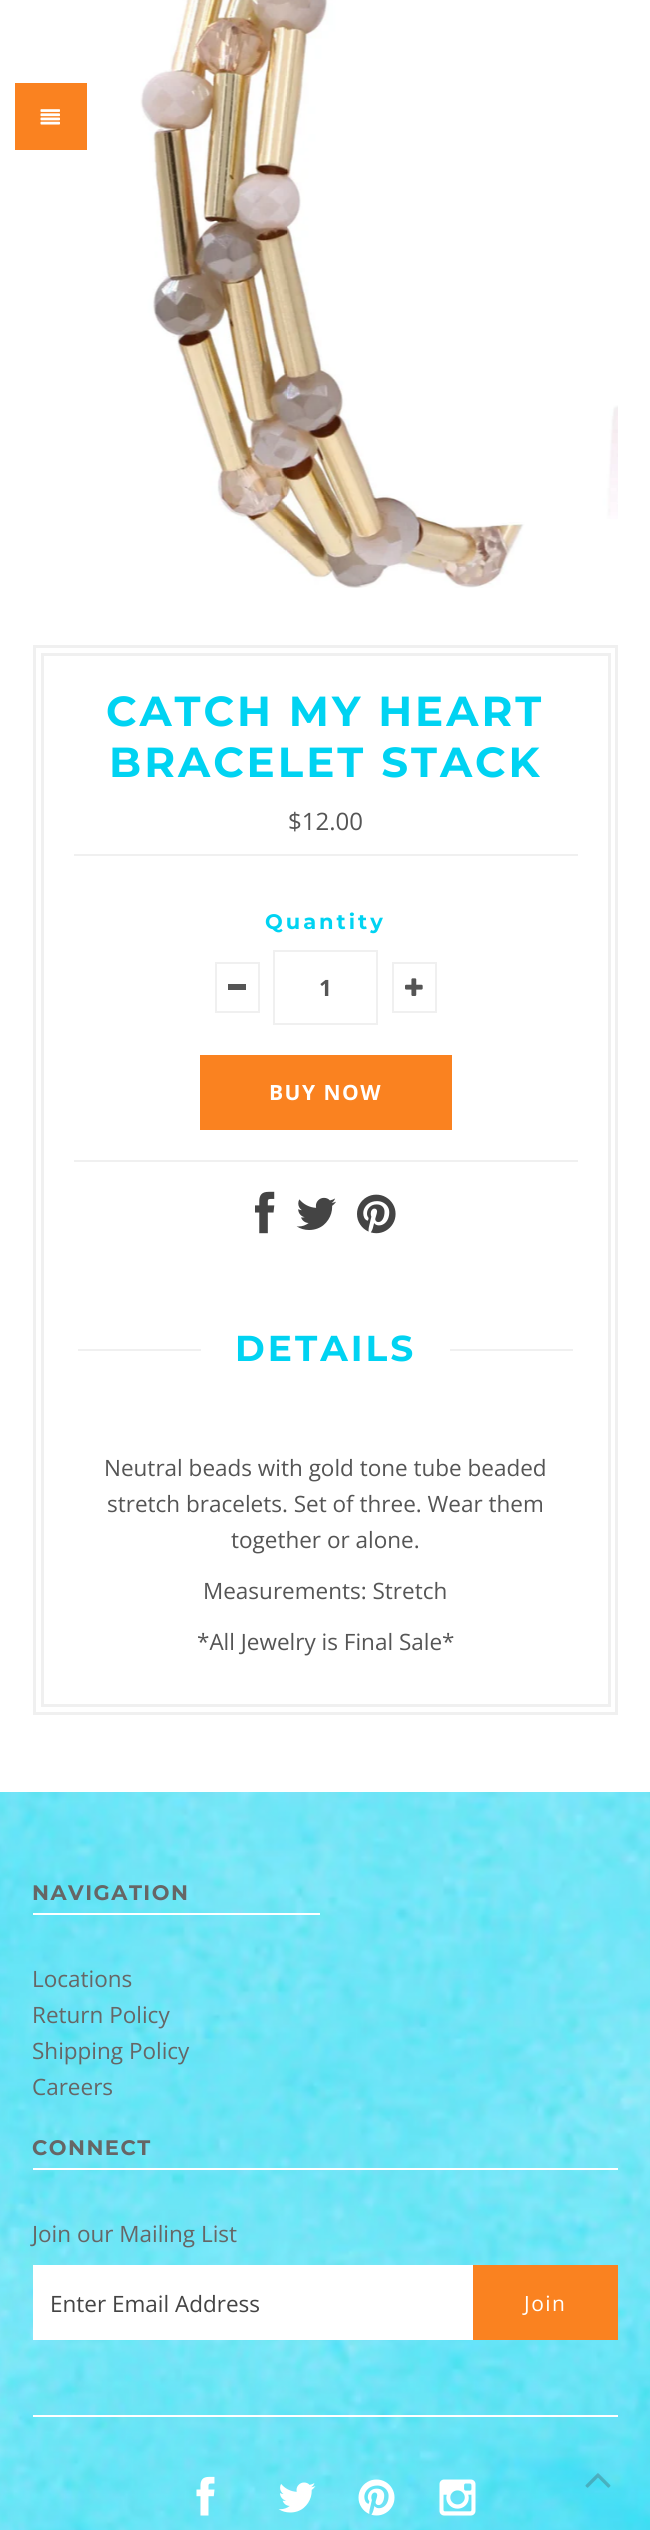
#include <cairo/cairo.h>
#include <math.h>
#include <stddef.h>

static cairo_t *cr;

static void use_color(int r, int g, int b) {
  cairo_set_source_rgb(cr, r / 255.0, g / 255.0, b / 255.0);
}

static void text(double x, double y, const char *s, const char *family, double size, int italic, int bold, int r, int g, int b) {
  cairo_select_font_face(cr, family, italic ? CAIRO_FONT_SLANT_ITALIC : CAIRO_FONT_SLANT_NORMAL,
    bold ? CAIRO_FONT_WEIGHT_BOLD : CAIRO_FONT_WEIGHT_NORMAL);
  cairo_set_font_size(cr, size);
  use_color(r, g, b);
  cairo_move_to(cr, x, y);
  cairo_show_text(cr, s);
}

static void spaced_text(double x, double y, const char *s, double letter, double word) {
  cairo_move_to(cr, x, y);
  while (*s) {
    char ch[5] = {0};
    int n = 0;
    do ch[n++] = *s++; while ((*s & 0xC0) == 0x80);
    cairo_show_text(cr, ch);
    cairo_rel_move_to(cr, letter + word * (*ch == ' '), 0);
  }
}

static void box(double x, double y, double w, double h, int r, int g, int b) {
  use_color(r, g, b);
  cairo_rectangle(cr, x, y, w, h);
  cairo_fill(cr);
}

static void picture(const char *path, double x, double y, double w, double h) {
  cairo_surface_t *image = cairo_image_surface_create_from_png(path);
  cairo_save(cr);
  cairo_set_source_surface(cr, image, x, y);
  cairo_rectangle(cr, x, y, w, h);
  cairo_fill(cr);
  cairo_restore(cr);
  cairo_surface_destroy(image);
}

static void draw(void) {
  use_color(255, 255, 255);
  cairo_paint(cr);
  box(15, 83, 72, 67, 250, 130, 32);
  picture("img_01.png", 40, 109, 20, 16);
  picture("img_02.png", 140, 0, 478, 588);
  cairo_rectangle(cr, 34.5, 646.5, 582, 1067);
  use_color(240, 240, 240);
  cairo_set_line_width(cr, 3);
  cairo_stroke(cr);
  cairo_rectangle(cr, 42.5, 654.5, 567, 1051);
  cairo_stroke(cr);
  box(74, 854, 504, 2, 240, 240, 240);
  box(74, 1160, 504, 2, 240, 240, 240);
  cairo_rectangle(cr, 216, 963, 43, 49);
  cairo_set_line_width(cr, 2);
  cairo_stroke(cr);
  box(228, 984, 18, 6, 85, 85, 85);
  cairo_rectangle(cr, 274, 951, 103, 73);
  use_color(240, 240, 240);
  cairo_stroke(cr);
  cairo_rectangle(cr, 393, 963, 43, 49);
  cairo_stroke(cr);
  picture("img_03.png", 405, 978, 18, 18);
  box(200, 1055, 252, 75, 250, 130, 32);
  picture("img_04.png", 255, 1191, 20, 43);
  picture("img_05.png", 296, 1197, 40, 33);
  picture("img_06.png", 357, 1194, 39, 40);
  box(78, 1349, 495, 2, 240, 240, 240);
  box(201, 1349, 249, 2, 255, 255, 255);
  picture("img_07.png", 0, 1792, 650, 738);
  box(33, 1913, 287, 2, 255, 255, 255);
  box(33, 2168, 585, 2, 255, 255, 255);
  box(33, 2265, 440, 75, 255, 255, 255);
  box(473, 2265, 145, 75, 250, 130, 32);
  box(33, 2415, 585, 2, 255, 255, 255);
  picture("img_08.png", 196, 2476, 19, 40);
  picture("img_09.png", 278, 2482, 38, 31);
  picture("img_10.png", 358, 2479, 37, 37);
  picture("img_11.png", 439, 2479, 37, 37);
  picture("img_12.png", 585, 2473, 26, 15);
  cairo_select_font_face(cr, "Montserrat", CAIRO_FONT_SLANT_NORMAL, CAIRO_FONT_WEIGHT_BOLD);
  cairo_set_font_size(cr, 42);
  use_color(0, 211, 242);
  spaced_text(106, 726, "CATCH MY HEART", 3, 0);
  spaced_text(109, 777, "BRACELET STACK", 3, 0);
  text(288, 830, "$12.00", "Open Sans", 24, 0, 0, 85, 85, 85);
  cairo_select_font_face(cr, "Montserrat", CAIRO_FONT_SLANT_NORMAL, CAIRO_FONT_WEIGHT_BOLD);
  cairo_set_font_size(cr, 21);
  use_color(0, 211, 242);
  spaced_text(265, 929, "Quantity", 3, 0);
  text(319, 996, "1", "Open Sans", 22.5, 0, 1, 85, 85, 85);
  cairo_set_font_size(cr, 21);
  use_color(255, 255, 255);
  spaced_text(269, 1100, "BUY NOW", 1.5, 0);
  cairo_select_font_face(cr, "Montserrat", CAIRO_FONT_SLANT_NORMAL, CAIRO_FONT_WEIGHT_BOLD);
  cairo_set_font_size(cr, 36);
  use_color(0, 211, 242);
  spaced_text(235, 1361, "DETAILS", 3, 0);
  text(104, 1476, "Neutral beads with gold tone tube beaded", "Open Sans", 22.5, 0, 0, 85, 85, 85);
  text(107, 1512, "stretch bracelets. Set of three. Wear them", "Open Sans", 22.5, 0, 0, 85, 85, 85);
  text(231, 1548, "together or alone.", "Open Sans", 22.5, 0, 0, 85, 85, 85);
  text(203, 1599, "Measurements: Stretch", "Open Sans", 22.5, 0, 0, 85, 85, 85);
  text(197, 1650, "*All Jewelry is Final Sale*", "Open Sans", 22.5, 0, 0, 85, 85, 85);
  cairo_select_font_face(cr, "Montserrat", CAIRO_FONT_SLANT_NORMAL, CAIRO_FONT_WEIGHT_BOLD);
  cairo_set_font_size(cr, 21);
  use_color(102, 102, 102);
  spaced_text(32, 1900, "NAVIGATION", 1.5, 0);
  text(32, 1987, "Locations", "Open Sans", 22.5, 0, 0, 102, 102, 102);
  text(32, 2023, "Return Policy", "Open Sans", 22.5, 0, 0, 102, 102, 102);
  text(32, 2059, "Shipping Policy", "Open Sans", 22.5, 0, 0, 102, 102, 102);
  text(32, 2095, "Careers", "Open Sans", 22.5, 0, 0, 102, 102, 102);
  cairo_select_font_face(cr, "Montserrat", CAIRO_FONT_SLANT_NORMAL, CAIRO_FONT_WEIGHT_BOLD);
  cairo_set_font_size(cr, 21);
  spaced_text(32, 2155, "CONNECT", 1.5, 0);
  text(32, 2242, "Join our Mailing List", "Open Sans", 22.5, 0, 0, 102, 102, 102);
  text(50, 2312, "Enter Email Address", "Open Sans", 22.5, 0, 0, 68, 68, 68);
  cairo_set_font_size(cr, 21);
  use_color(255, 255, 255);
  spaced_text(524, 2311, "Join", 1.5, 0);
}

int main(void) {
  cairo_surface_t *surface = cairo_image_surface_create(CAIRO_FORMAT_RGB24, 650, 2530);
  cr = cairo_create(surface);
  cairo_font_options_t *options = cairo_font_options_create();
  cairo_font_options_set_hint_metrics(options, CAIRO_HINT_METRICS_OFF);
  cairo_font_options_set_hint_style(options, CAIRO_HINT_STYLE_NONE);
  cairo_set_font_options(cr, options);
  cairo_set_miter_limit(cr, 4);
  draw();
  cairo_surface_write_to_png(surface, "out.png");
  cairo_font_options_destroy(options);
  cairo_destroy(cr);
  cairo_surface_destroy(surface);
  return 0;
}
